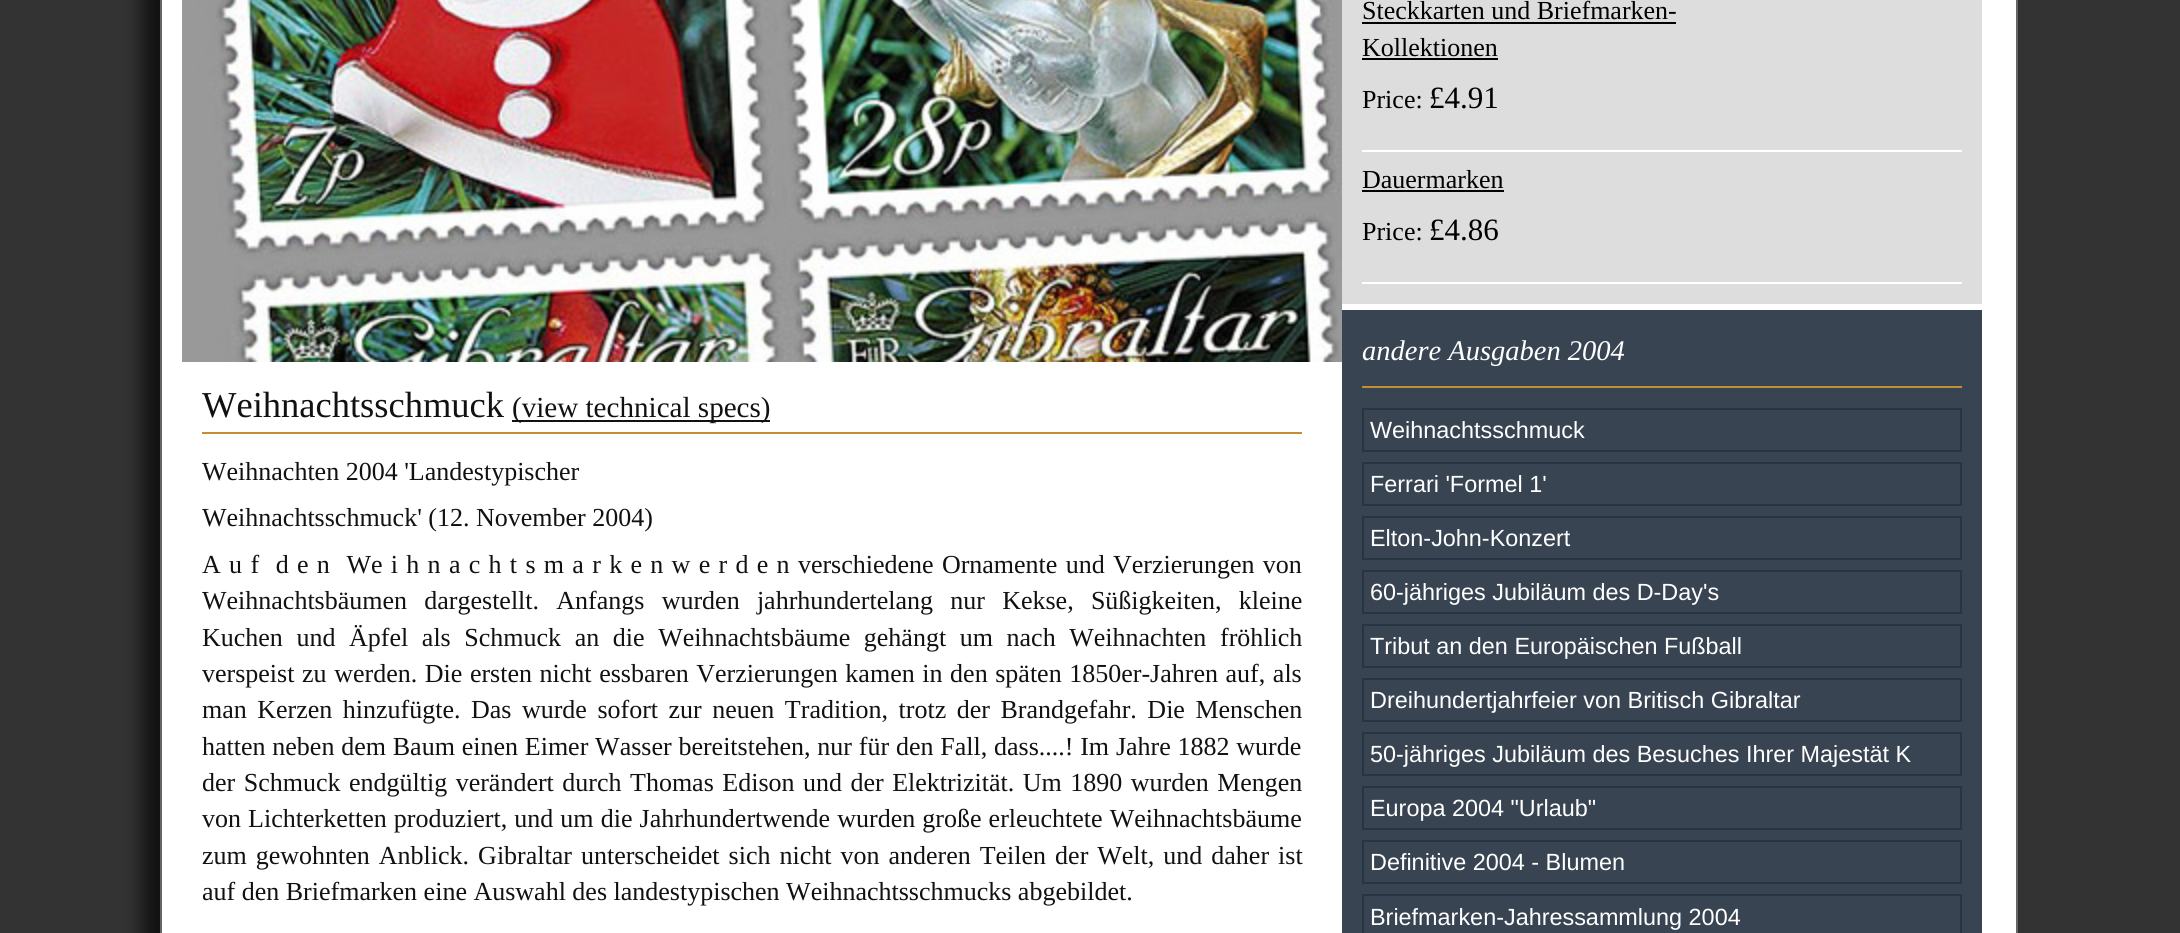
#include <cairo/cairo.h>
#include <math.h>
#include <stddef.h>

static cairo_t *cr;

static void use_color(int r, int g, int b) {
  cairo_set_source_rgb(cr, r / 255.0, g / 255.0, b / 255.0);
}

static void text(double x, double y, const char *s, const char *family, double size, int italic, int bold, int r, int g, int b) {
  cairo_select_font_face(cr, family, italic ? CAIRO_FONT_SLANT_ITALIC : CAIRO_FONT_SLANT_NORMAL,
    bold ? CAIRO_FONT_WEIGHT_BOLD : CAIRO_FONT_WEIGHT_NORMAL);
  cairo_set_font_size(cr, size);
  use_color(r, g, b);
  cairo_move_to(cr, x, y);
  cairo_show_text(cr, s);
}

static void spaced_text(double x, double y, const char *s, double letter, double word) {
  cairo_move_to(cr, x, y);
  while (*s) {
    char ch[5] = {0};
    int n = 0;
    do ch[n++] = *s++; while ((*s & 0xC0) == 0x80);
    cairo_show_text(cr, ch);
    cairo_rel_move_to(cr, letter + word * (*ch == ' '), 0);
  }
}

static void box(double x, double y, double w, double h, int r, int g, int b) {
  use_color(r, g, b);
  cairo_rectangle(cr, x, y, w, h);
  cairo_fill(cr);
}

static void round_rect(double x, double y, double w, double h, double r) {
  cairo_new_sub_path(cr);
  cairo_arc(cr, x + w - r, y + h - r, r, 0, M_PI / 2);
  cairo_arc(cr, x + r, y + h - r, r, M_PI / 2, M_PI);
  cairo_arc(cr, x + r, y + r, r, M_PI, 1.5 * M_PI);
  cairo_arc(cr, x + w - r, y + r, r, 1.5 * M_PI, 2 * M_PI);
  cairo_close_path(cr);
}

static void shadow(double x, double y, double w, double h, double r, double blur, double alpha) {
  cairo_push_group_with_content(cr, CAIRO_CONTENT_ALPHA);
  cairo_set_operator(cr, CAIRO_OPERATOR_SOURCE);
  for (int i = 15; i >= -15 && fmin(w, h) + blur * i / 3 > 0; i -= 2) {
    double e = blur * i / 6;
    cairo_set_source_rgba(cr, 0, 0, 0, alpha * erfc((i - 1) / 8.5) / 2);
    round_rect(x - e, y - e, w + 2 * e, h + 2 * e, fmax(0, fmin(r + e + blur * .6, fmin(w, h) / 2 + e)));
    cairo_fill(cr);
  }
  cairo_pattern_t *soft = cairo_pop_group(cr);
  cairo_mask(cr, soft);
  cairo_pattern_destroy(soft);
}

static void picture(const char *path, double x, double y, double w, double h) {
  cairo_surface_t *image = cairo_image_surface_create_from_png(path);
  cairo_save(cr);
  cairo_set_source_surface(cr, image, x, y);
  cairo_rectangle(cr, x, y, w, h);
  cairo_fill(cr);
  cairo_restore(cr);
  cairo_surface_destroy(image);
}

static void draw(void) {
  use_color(51, 51, 51);
  cairo_paint(cr);
  use_color(17, 17, 17);
  shadow(142, -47, 1858, 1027, 20, 9, 1);
  use_color(255, 255, 255);
  cairo_rectangle(cr, 161, -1, 1856, 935);
  cairo_fill_preserve(cr);
  use_color(102, 102, 102);
  cairo_stroke(cr);
  picture("img_01.png", 182, 0, 1160, 362);
  box(202, 432, 1100, 2, 196, 143, 51);
  box(512, 420, 258, 2, 17, 17, 17);
  box(1342, 0, 640, 304, 221, 221, 221);
  box(1362, 150, 600, 2, 255, 255, 255);
  box(1362, 22, 314, 2, 0, 0, 0);
  box(1362, 58, 136, 2, 0, 0, 0);
  box(1362, 282, 600, 2, 255, 255, 255);
  box(1362, 190, 142, 2, 0, 0, 0);
  box(1342, 310, 640, 623, 57, 68, 82);
  box(1362, 386, 600, 2, 196, 143, 51);
  cairo_rectangle(cr, 1363, 409, 598, 42);
  use_color(41, 52, 66);
  cairo_stroke(cr);
  cairo_rectangle(cr, 1363, 463, 598, 42);
  cairo_stroke(cr);
  cairo_rectangle(cr, 1363, 517, 598, 42);
  cairo_stroke(cr);
  cairo_rectangle(cr, 1363, 571, 598, 42);
  cairo_stroke(cr);
  cairo_rectangle(cr, 1363, 625, 598, 42);
  cairo_stroke(cr);
  cairo_rectangle(cr, 1363, 679, 598, 42);
  cairo_stroke(cr);
  cairo_rectangle(cr, 1363, 733, 598, 42);
  cairo_stroke(cr);
  cairo_rectangle(cr, 1363, 787, 598, 42);
  cairo_stroke(cr);
  cairo_rectangle(cr, 1363, 841, 598, 42);
  cairo_stroke(cr);
  cairo_rectangle(cr, 1363, 895, 598, 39);
  cairo_stroke(cr);
  text(202, 417, "Weihnachtsschmuck", "Liberation Serif", 36.5, 0, 0, 17, 17, 17);
  text(512, 417, "(view technical specs)", "Liberation Serif", 29.1, 0, 0, 17, 17, 17);
  text(202, 480, "Weihnachten 2004 'Landestypischer", "Liberation Serif", 26, 0, 0, 17, 17, 17);
  text(202, 526, "Weihnachtsschmuck' (12. November 2004)", "Liberation Serif", 26, 0, 0, 17, 17, 17);
  spaced_text(202, 573, "A u f  d e n  We i h n a c h t s m a r k e n w e r d e n verschiedene Ornamente und Verzierungen von", 0, 1.8);
  spaced_text(202, 609, "Weihnachtsbäumen dargestellt. Anfangs wurden jahrhundertelang nur Kekse, Süßigkeiten, kleine", 0, 10.75);
  spaced_text(202, 646, "Kuchen und Äpfel als Schmuck an die Weihnachtsbäume gehängt um nach Weihnachten fröhlich", 0, 7.1);
  spaced_text(202, 682, "verspeist zu werden. Die ersten nicht essbaren Verzierungen kamen in den späten 1850er-Jahren auf, als", 0, 1.1);
  spaced_text(202, 718, "man Kerzen hinzufügte. Das wurde sofort zur neuen Tradition, trotz der Brandgefahr. Die Menschen", 0, 4);
  spaced_text(202, 755, "hatten neben dem Baum einen Eimer Wasser bereitstehen, nur für den Fall, dass....! Im Jahre 1882 wurde", 0, 0.3);
  spaced_text(202, 791, "der Schmuck endgültig verändert durch Thomas Edison und der Elektrizität. Um 1890 wurden Mengen", 0, 2);
  spaced_text(202, 827, "von Lichterketten produziert, und um die Jahrhundertwende wurden große erleuchtete Weihnachtsbäume", 0, 0.6);
  spaced_text(202, 864, "zum gewohnten Anblick. Gibraltar unterscheidet sich nicht von anderen Teilen der Welt, und daher ist", 0, 2.5);
  text(202, 900, "auf den Briefmarken eine Auswahl des landestypischen Weihnachtsschmucks abgebildet.", "Liberation Serif", 26, 0, 0, 17, 17, 17);
  text(1362, 19, "Steckkarten und Briefmarken-", "Liberation Serif", 26, 0, 0, 0, 0, 0);
  text(1362, 56, "Kollektionen", "Liberation Serif", 26, 0, 0, 0, 0, 0);
  text(1362, 108, "Price:", "Liberation Serif", 26, 0, 0, 0, 0, 0);
  text(1429, 108, "£4.91", "Liberation Serif", 31, 0, 0, 0, 0, 0);
  text(1362, 188, "Dauermarken", "Liberation Serif", 26, 0, 0, 0, 0, 0);
  text(1362, 240, "Price:", "Liberation Serif", 26, 0, 0, 0, 0, 0);
  text(1429, 240, "£4.86", "Liberation Serif", 31, 0, 0, 0, 0, 0);
  text(1362, 360, "andere Ausgaben 2004", "Liberation Serif", 28.5, 1, 0, 255, 255, 255);
  text(1370, 438, "Weihnachtsschmuck", "Liberation Sans", 23.4, 0, 0, 255, 255, 255);
  text(1370, 492, "Ferrari 'Formel 1'", "Liberation Sans", 23.4, 0, 0, 255, 255, 255);
  text(1370, 546, "Elton-John-Konzert", "Liberation Sans", 23.4, 0, 0, 255, 255, 255);
  text(1370, 600, "60-jähriges Jubiläum des D-Day's", "Liberation Sans", 23.4, 0, 0, 255, 255, 255);
  text(1370, 654, "Tribut an den Europäischen Fußball", "Liberation Sans", 23.4, 0, 0, 255, 255, 255);
  text(1370, 708, "Dreihundertjahrfeier von Britisch Gibraltar", "Liberation Sans", 23.4, 0, 0, 255, 255, 255);
  text(1370, 762, "50-jähriges Jubiläum des Besuches Ihrer Majestät K", "Liberation Sans", 23.4, 0, 0, 255, 255, 255);
  text(1370, 816, "Europa 2004 \"Urlaub\"", "Liberation Sans", 23.4, 0, 0, 255, 255, 255);
  text(1370, 870, "Definitive 2004 - Blumen", "Liberation Sans", 23.4, 0, 0, 255, 255, 255);
  text(1370, 925, "Briefmarken-Jahressammlung 2004", "Liberation Sans", 23.4, 0, 0, 255, 255, 255);
}

int main(void) {
  cairo_surface_t *surface = cairo_image_surface_create(CAIRO_FORMAT_RGB24, 2180, 933);
  cr = cairo_create(surface);
  cairo_font_options_t *options = cairo_font_options_create();
  cairo_font_options_set_hint_metrics(options, CAIRO_HINT_METRICS_OFF);
  cairo_font_options_set_hint_style(options, CAIRO_HINT_STYLE_NONE);
  cairo_set_font_options(cr, options);
  cairo_set_miter_limit(cr, 4);
  draw();
  cairo_surface_write_to_png(surface, "out.png");
  cairo_font_options_destroy(options);
  cairo_destroy(cr);
  cairo_surface_destroy(surface);
  return 0;
}
